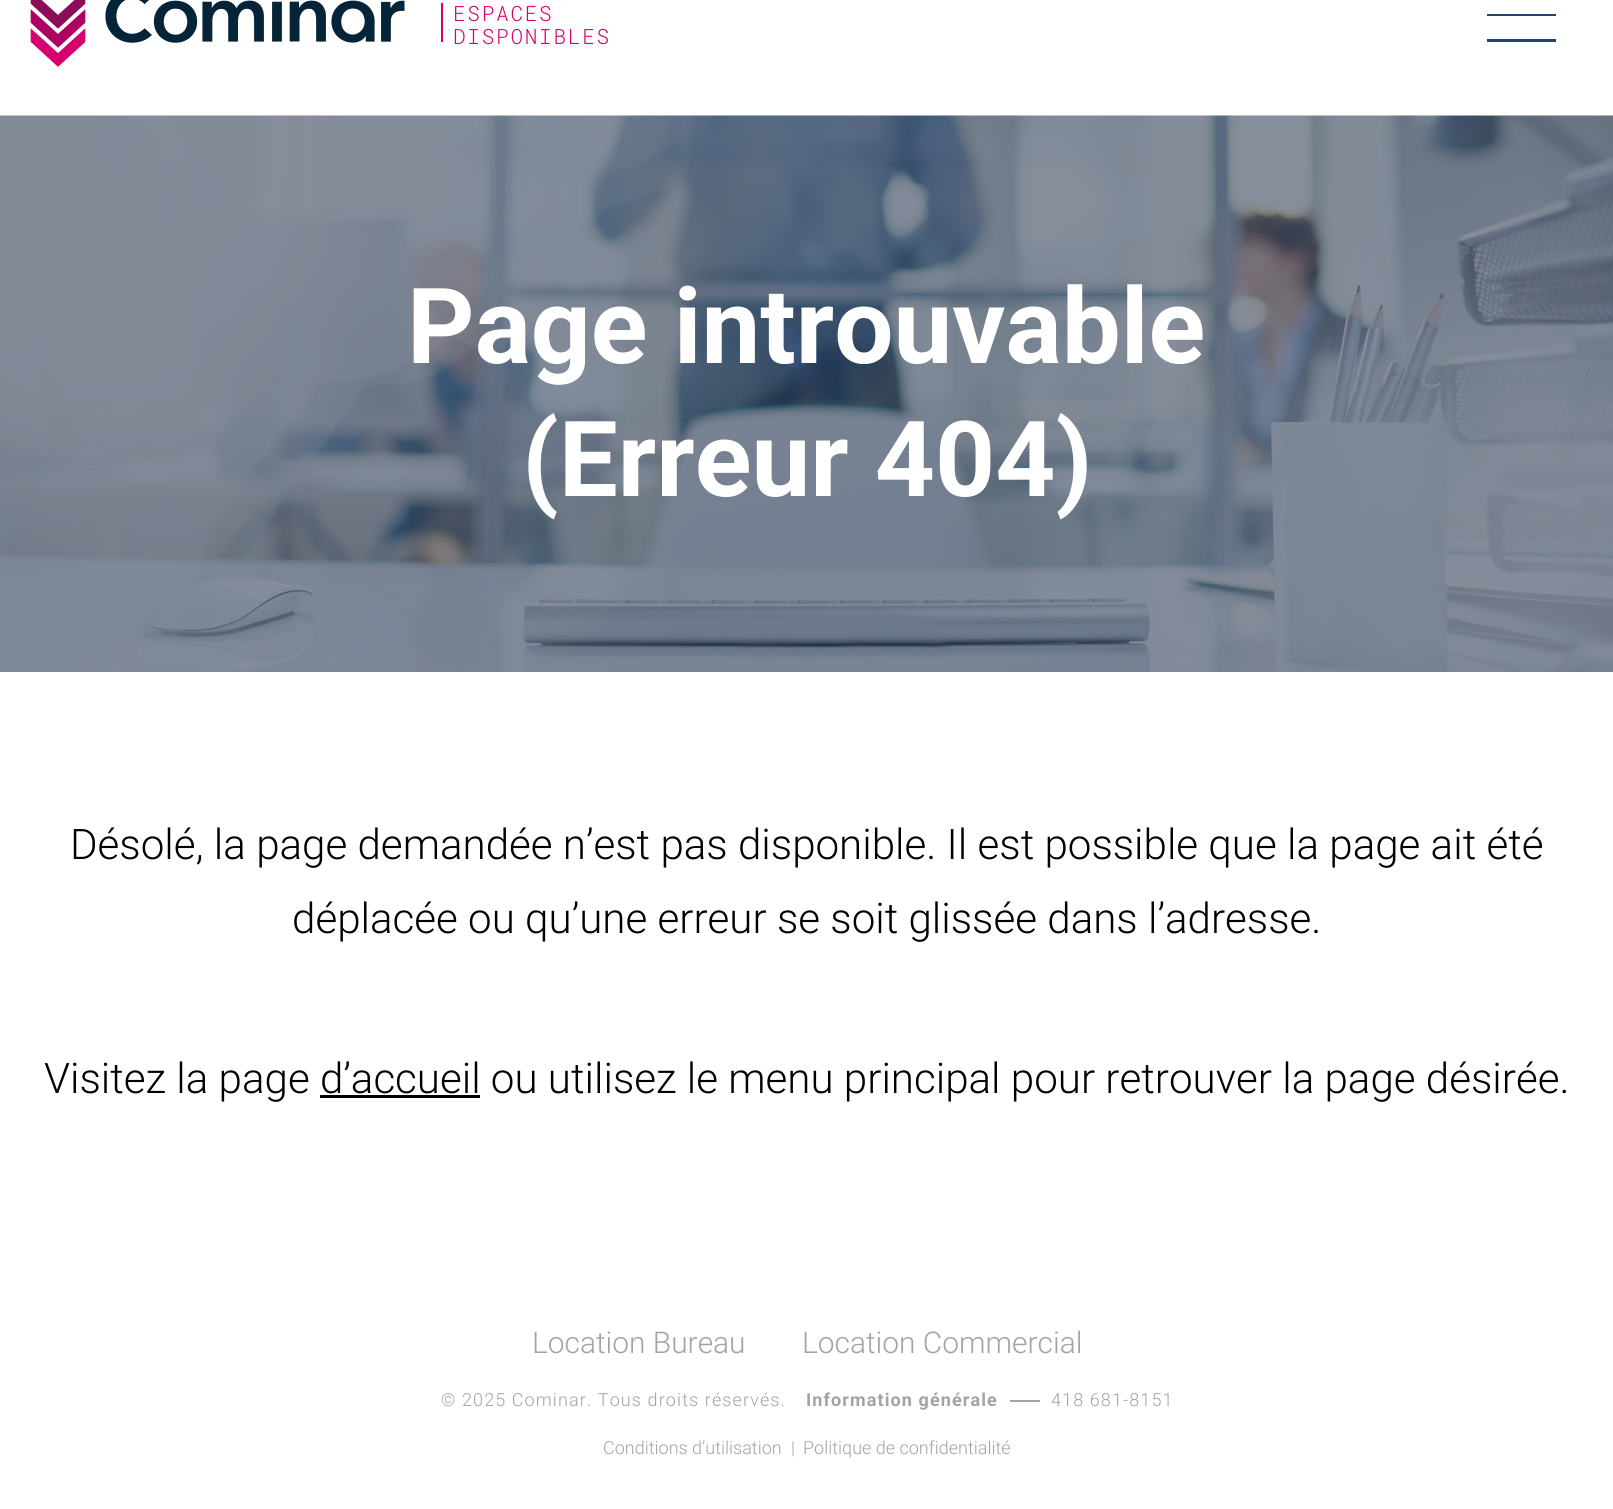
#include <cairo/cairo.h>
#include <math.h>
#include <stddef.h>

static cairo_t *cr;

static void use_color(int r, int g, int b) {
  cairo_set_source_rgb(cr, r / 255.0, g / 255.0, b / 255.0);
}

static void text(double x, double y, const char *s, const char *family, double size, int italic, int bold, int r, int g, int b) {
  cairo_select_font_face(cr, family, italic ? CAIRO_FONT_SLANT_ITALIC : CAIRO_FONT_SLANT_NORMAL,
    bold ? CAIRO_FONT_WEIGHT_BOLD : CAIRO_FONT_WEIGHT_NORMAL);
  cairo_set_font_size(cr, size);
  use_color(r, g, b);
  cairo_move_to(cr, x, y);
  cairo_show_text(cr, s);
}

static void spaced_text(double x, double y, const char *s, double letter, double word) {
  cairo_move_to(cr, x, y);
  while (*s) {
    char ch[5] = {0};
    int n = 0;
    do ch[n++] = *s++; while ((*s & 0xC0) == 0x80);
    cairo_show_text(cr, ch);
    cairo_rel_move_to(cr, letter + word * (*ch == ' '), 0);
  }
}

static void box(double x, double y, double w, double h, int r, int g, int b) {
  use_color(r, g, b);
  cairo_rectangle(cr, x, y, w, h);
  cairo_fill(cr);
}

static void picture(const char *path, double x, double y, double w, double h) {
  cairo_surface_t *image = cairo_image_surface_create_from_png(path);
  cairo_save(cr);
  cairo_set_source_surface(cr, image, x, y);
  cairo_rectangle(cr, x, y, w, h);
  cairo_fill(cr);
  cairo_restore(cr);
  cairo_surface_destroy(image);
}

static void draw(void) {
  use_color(255, 255, 255);
  cairo_paint(cr);
  picture("img_01.png", 30, 0, 375, 67);
  box(441, 3, 2, 39, 215, 0, 110);
  use_color(36, 66, 116);
  cairo_new_path(cr);
  cairo_move_to(cr, 1487, -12);
  cairo_line_to(cr, 1487, -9);
  cairo_line_to(cr, 1556, -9);
  cairo_line_to(cr, 1556, -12);
  cairo_close_path(cr);
  cairo_move_to(cr, 1487, 16);
  cairo_line_to(cr, 1556, 16);
  cairo_line_to(cr, 1556, 14);
  cairo_line_to(cr, 1487, 14);
  cairo_close_path(cr);
  cairo_move_to(cr, 1487, 42);
  cairo_line_to(cr, 1556, 42);
  cairo_line_to(cr, 1556, 39);
  cairo_line_to(cr, 1487, 39);
  cairo_close_path(cr);
  cairo_fill(cr);
  picture("img_02.png", 0, 115, 1613, 557);
  box(320, 1095, 160, 3, 0, 0, 0);
  box(1010, 1400, 30, 2, 163, 163, 163);
  cairo_select_font_face(cr, "Roboto Mono Light", CAIRO_FONT_SLANT_NORMAL, CAIRO_FONT_WEIGHT_NORMAL);
  cairo_set_font_size(cr, 21);
  use_color(215, 0, 110);
  spaced_text(453, 21, "ESPACES", 1.75, 0);
  spaced_text(453, 44, "DISPONIBLES", 1.75, 0);
  text(407, 363, "Page introuvable", "Roboto", 105, 0, 1, 255, 255, 255);
  text(522, 496, "(Erreur 404)", "Roboto", 105, 0, 1, 255, 255, 255);
  text(70, 859, "Désolé, la page demandée n’est pas disponible. Il est possible que la page ait été", "Roboto Light", 42.1, 0, 0, 0, 0, 0);
  text(292, 933, "déplacée ou qu’une erreur se soit glissée dans l’adresse.", "Roboto Light", 42.1, 0, 0, 0, 0, 0);
  text(44, 1093, "Visitez la page d’accueil ou utilisez le menu principal pour retrouver la page désirée.", "Roboto Light", 42.1, 0, 0, 0, 0, 0);
  text(532, 1353, "Location Bureau", "Roboto Light", 29.9, 0, 0, 163, 163, 163);
  text(802, 1353, "Location Commercial", "Roboto Light", 29.9, 0, 0, 163, 163, 163);
  cairo_set_font_size(cr, 18);
  spaced_text(441, 1406, "© 2025 Cominar. Tous droits réservés.", 1.1, 0);
  cairo_select_font_face(cr, "Roboto", CAIRO_FONT_SLANT_NORMAL, CAIRO_FONT_WEIGHT_BOLD);
  spaced_text(806, 1406, "Information générale", 1.1, 0);
  cairo_select_font_face(cr, "Roboto Light", CAIRO_FONT_SLANT_NORMAL, CAIRO_FONT_WEIGHT_NORMAL);
  spaced_text(1051, 1406, "418 681-8151", 1.1, 0);
  text(603, 1454, "Conditions d’utilisation", "Roboto Light", 18, 0, 0, 163, 163, 163);
  text(791, 1454, "|", "Roboto Light", 18, 0, 0, 163, 163, 163);
  text(803, 1454, "Politique de confidentialité", "Roboto Light", 18, 0, 0, 163, 163, 163);
}

int main(void) {
  cairo_surface_t *surface = cairo_image_surface_create(CAIRO_FORMAT_RGB24, 1613, 1509);
  cr = cairo_create(surface);
  cairo_font_options_t *options = cairo_font_options_create();
  cairo_font_options_set_hint_metrics(options, CAIRO_HINT_METRICS_OFF);
  cairo_font_options_set_hint_style(options, CAIRO_HINT_STYLE_NONE);
  cairo_set_font_options(cr, options);
  cairo_set_miter_limit(cr, 4);
  draw();
  cairo_surface_write_to_png(surface, "out.png");
  cairo_font_options_destroy(options);
  cairo_destroy(cr);
  cairo_surface_destroy(surface);
  return 0;
}
